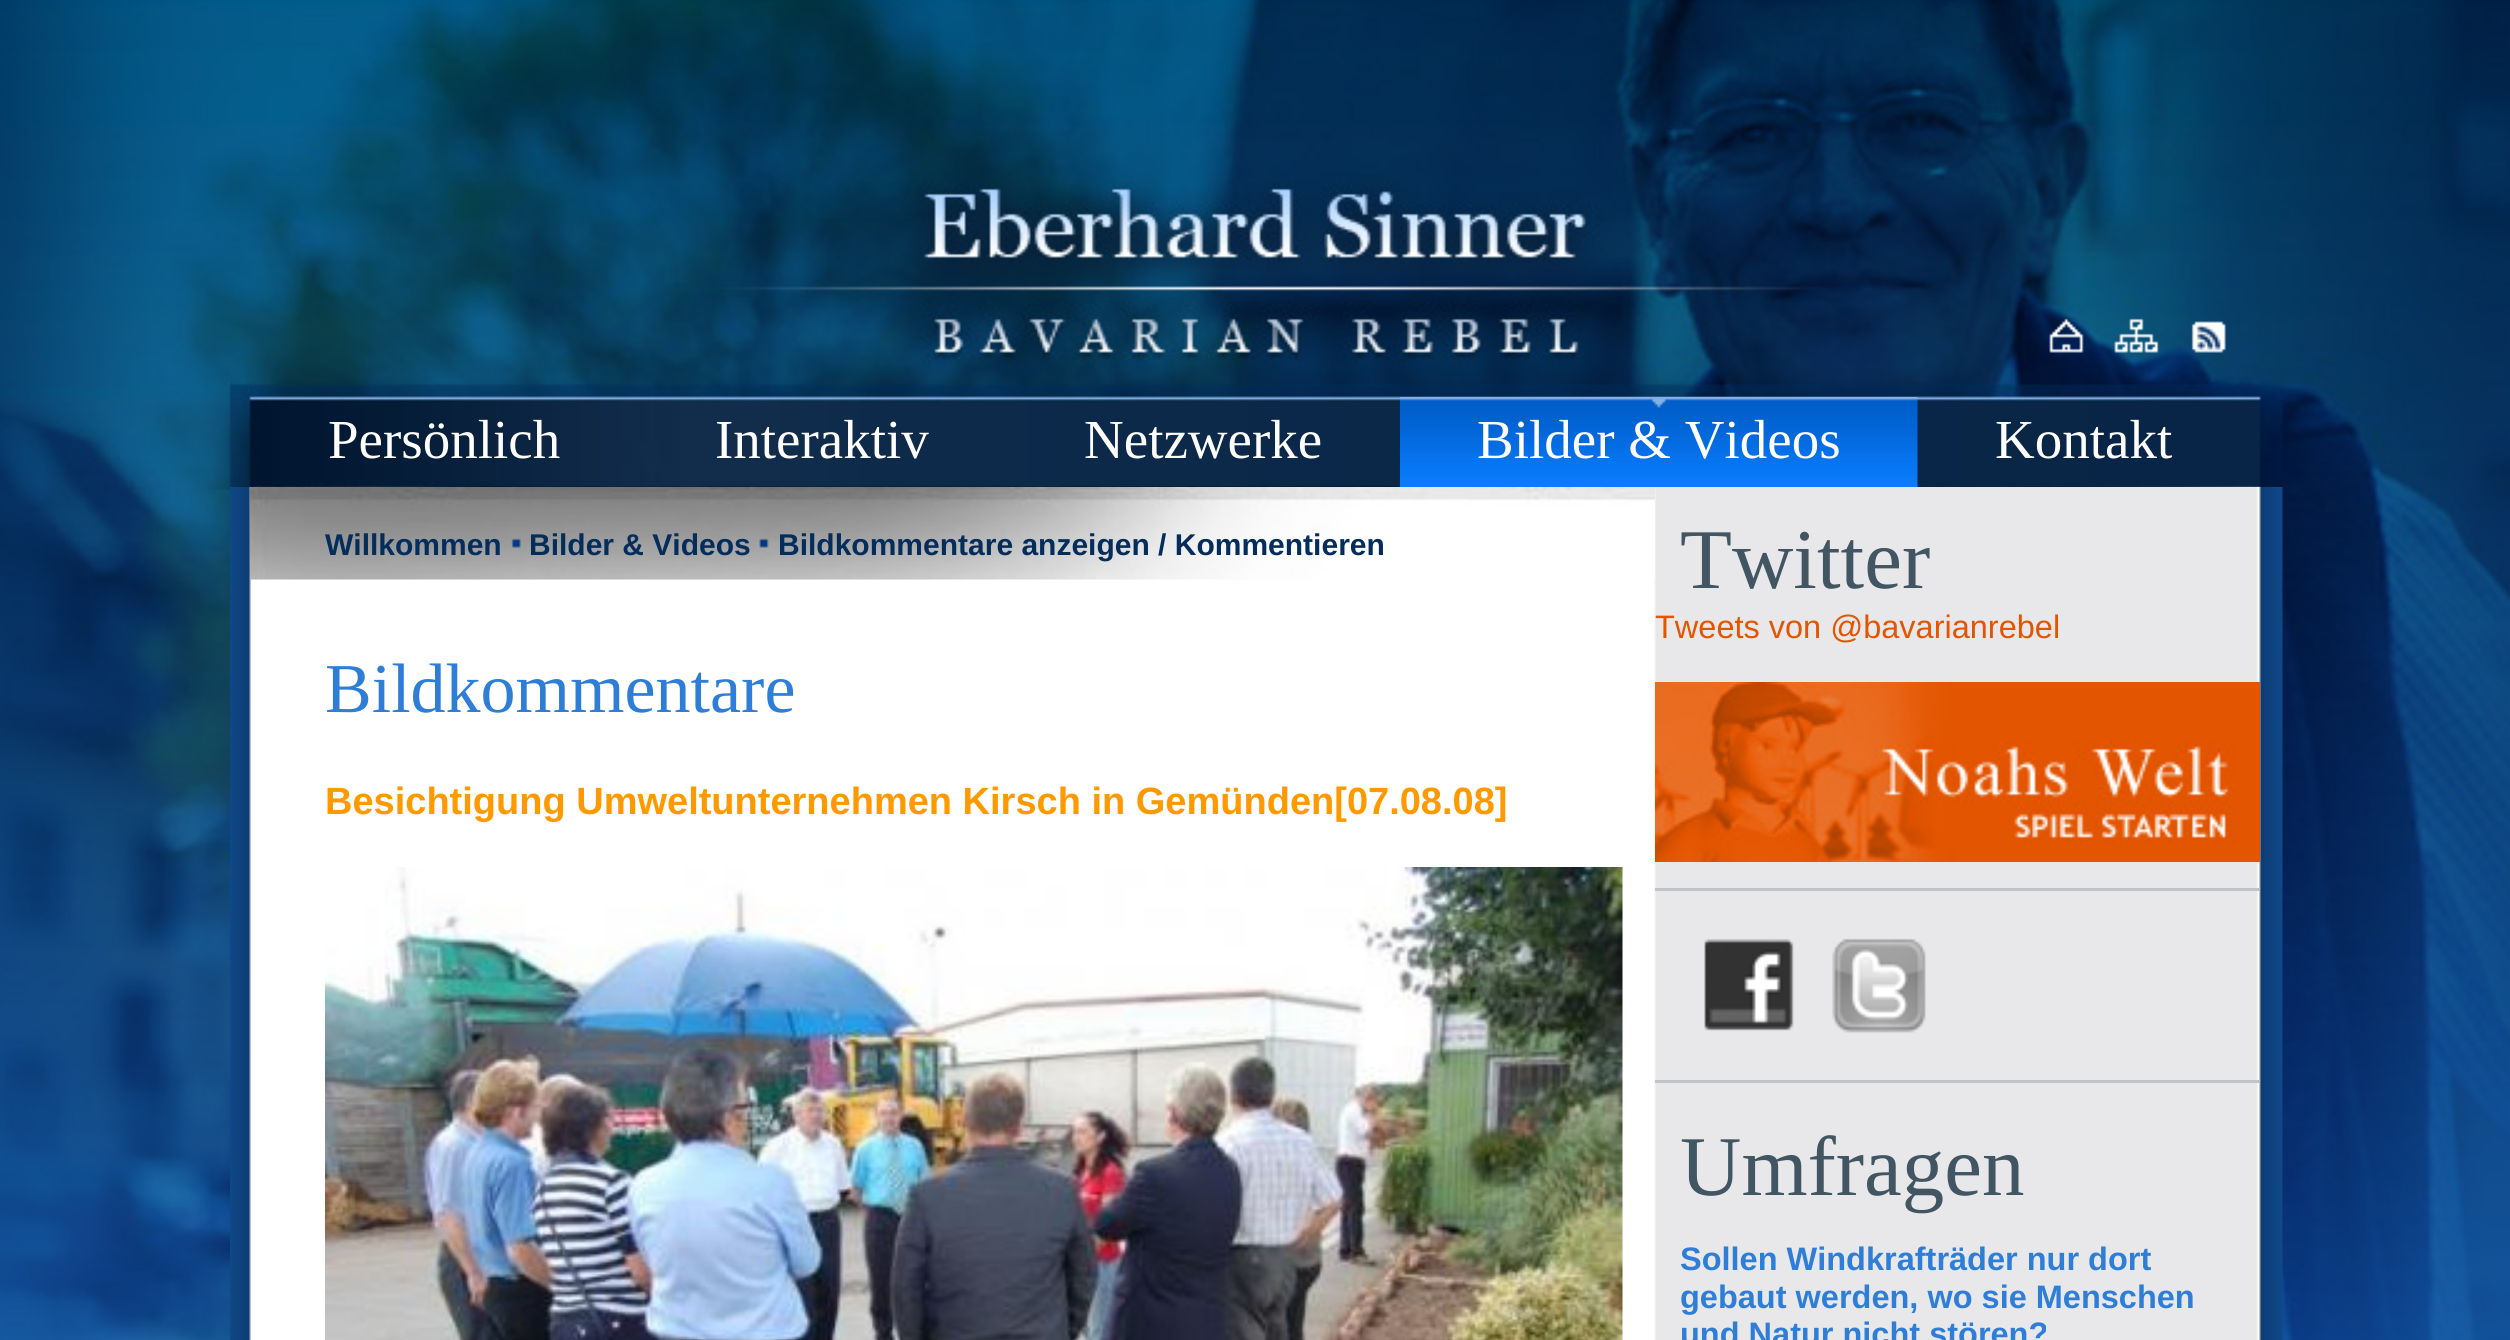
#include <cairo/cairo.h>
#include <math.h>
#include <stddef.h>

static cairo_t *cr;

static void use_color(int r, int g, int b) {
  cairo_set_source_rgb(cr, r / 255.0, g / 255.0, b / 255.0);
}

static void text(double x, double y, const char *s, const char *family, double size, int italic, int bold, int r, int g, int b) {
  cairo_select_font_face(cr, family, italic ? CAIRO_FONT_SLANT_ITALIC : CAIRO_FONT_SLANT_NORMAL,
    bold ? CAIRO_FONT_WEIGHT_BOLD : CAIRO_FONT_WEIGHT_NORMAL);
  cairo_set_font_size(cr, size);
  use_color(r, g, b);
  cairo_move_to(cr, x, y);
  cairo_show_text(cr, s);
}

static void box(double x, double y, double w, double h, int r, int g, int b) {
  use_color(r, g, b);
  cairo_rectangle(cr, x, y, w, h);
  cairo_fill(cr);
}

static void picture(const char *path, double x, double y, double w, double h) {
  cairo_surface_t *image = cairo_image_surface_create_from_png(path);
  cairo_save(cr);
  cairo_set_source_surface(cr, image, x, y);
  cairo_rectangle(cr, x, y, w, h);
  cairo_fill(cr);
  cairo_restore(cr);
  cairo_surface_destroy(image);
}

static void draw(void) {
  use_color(255, 255, 255);
  cairo_paint(cr);
  picture("img_01.png", 0, 0, 2510, 1340);
  picture("img_02.png", 130, 0, 2250, 490);
  picture("img_03.png", 2049, 318, 35, 35);
  picture("img_04.png", 2114, 318, 45, 35);
  picture("img_05.png", 2191, 321, 35, 32);
  picture("img_06.png", 1400, 397, 518, 90);
  picture("img_07.png", 230, 487, 2053, 853);
  picture("img_08.png", 250, 487, 1405, 93);
  picture("img_09.png", 511, 538, 10, 10);
  picture("img_10.png", 759, 538, 10, 10);
  picture("img_11.png", 325, 867, 1298, 473);
  box(1655, 888, 605, 3, 191, 194, 199);
  picture("img_12.png", 1655, 682, 605, 180);
  box(1655, 1080, 605, 3, 191, 194, 199);
  picture("img_13.png", 1704, 939, 90, 92);
  picture("img_14.png", 1832, 938, 94, 95);
  text(328, 458, "Persönlich", "Liberation Serif", 55, 0, 0, 255, 255, 255);
  text(715, 458, "Interaktiv", "Liberation Serif", 55, 0, 0, 255, 255, 255);
  text(1084, 458, "Netzwerke", "Liberation Serif", 55, 0, 0, 255, 255, 255);
  text(1477, 458, "Bilder & Videos", "Liberation Serif", 55, 0, 0, 255, 255, 255);
  text(1995, 458, "Kontakt", "Liberation Serif", 55, 0, 0, 255, 255, 255);
  text(325, 555, "Willkommen", "Liberation Sans", 30, 0, 1, 4, 45, 91);
  text(529, 555, "Bilder & Videos", "Liberation Sans", 30, 0, 1, 4, 45, 91);
  text(778, 555, "Bildkommentare anzeigen / Kommentieren", "Liberation Sans", 30, 0, 1, 4, 45, 91);
  text(325, 712, "Bildkommentare", "Liberation Serif", 70, 0, 0, 46, 126, 215);
  text(325, 814, "Besichtigung Umweltunternehmen Kirsch in Gemünden[07.08.08]", "Liberation Sans", 38, 0, 1, 255, 153, 0);
  text(1680, 588, "Twitter", "Liberation Serif", 85, 0, 0, 66, 85, 99);
  text(1655, 638, "Tweets von @bavarianrebel", "Liberation Sans", 32.5, 0, 0, 227, 85, 0);
  text(1680, 1195, "Umfragen", "Liberation Serif", 85, 0, 0, 66, 85, 99);
  text(1680, 1270, "Sollen Windkrafträder nur dort", "Liberation Sans", 32.5, 0, 1, 46, 126, 215);
  text(1680, 1308, "gebaut werden, wo sie Menschen", "Liberation Sans", 32.5, 0, 1, 46, 126, 215);
  text(1680, 1345, "und Natur nicht stören?", "Liberation Sans", 32.5, 0, 1, 46, 126, 215);
}

int main(void) {
  cairo_surface_t *surface = cairo_image_surface_create(CAIRO_FORMAT_RGB24, 2510, 1340);
  cr = cairo_create(surface);
  cairo_font_options_t *options = cairo_font_options_create();
  cairo_font_options_set_hint_metrics(options, CAIRO_HINT_METRICS_OFF);
  cairo_font_options_set_hint_style(options, CAIRO_HINT_STYLE_NONE);
  cairo_set_font_options(cr, options);
  cairo_set_miter_limit(cr, 4);
  draw();
  cairo_surface_write_to_png(surface, "out.png");
  cairo_font_options_destroy(options);
  cairo_destroy(cr);
  cairo_surface_destroy(surface);
  return 0;
}
